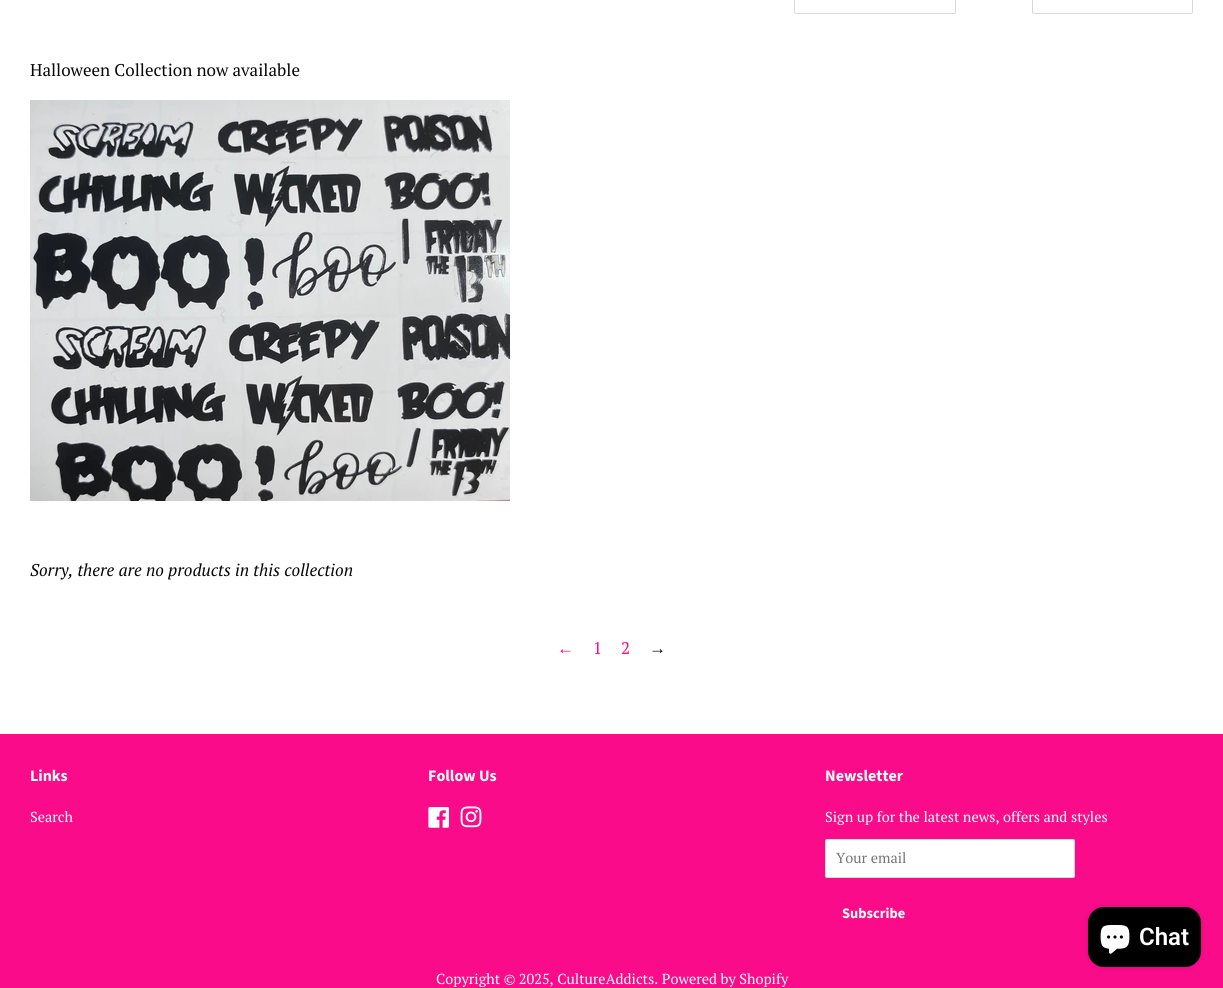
#include <cairo/cairo.h>
#include <math.h>
#include <stddef.h>

static cairo_t *cr;

static void use_color(int r, int g, int b) {
  cairo_set_source_rgb(cr, r / 255.0, g / 255.0, b / 255.0);
}

static void text(double x, double y, const char *s, const char *family, double size, int italic, int bold, int r, int g, int b) {
  cairo_select_font_face(cr, family, italic ? CAIRO_FONT_SLANT_ITALIC : CAIRO_FONT_SLANT_NORMAL,
    bold ? CAIRO_FONT_WEIGHT_BOLD : CAIRO_FONT_WEIGHT_NORMAL);
  cairo_set_font_size(cr, size);
  use_color(r, g, b);
  cairo_move_to(cr, x, y);
  cairo_show_text(cr, s);
}

static void box(double x, double y, double w, double h, int r, int g, int b) {
  use_color(r, g, b);
  cairo_rectangle(cr, x, y, w, h);
  cairo_fill(cr);
}

static void round_rect(double x, double y, double w, double h, double r) {
  cairo_new_sub_path(cr);
  cairo_arc(cr, x + w - r, y + h - r, r, 0, M_PI / 2);
  cairo_arc(cr, x + r, y + h - r, r, M_PI / 2, M_PI);
  cairo_arc(cr, x + r, y + r, r, M_PI, 1.5 * M_PI);
  cairo_arc(cr, x + w - r, y + r, r, 1.5 * M_PI, 2 * M_PI);
  cairo_close_path(cr);
}

static void shadow(double x, double y, double w, double h, double r, double blur, double alpha) {
  cairo_push_group_with_content(cr, CAIRO_CONTENT_ALPHA);
  cairo_set_operator(cr, CAIRO_OPERATOR_SOURCE);
  for (int i = 15; i >= -15 && fmin(w, h) + blur * i / 3 > 0; i -= 2) {
    double e = blur * i / 6;
    cairo_set_source_rgba(cr, 0, 0, 0, alpha * erfc((i - 1) / 8.5) / 2);
    round_rect(x - e, y - e, w + 2 * e, h + 2 * e, fmax(0, fmin(r + e + blur * .6, fmin(w, h) / 2 + e)));
    cairo_fill(cr);
  }
  cairo_pattern_t *soft = cairo_pop_group(cr);
  cairo_mask(cr, soft);
  cairo_pattern_destroy(soft);
}

static void picture(const char *path, double x, double y, double w, double h) {
  cairo_surface_t *image = cairo_image_surface_create_from_png(path);
  cairo_save(cr);
  cairo_set_source_surface(cr, image, x, y);
  cairo_rectangle(cr, x, y, w, h);
  cairo_fill(cr);
  cairo_restore(cr);
  cairo_surface_destroy(image);
}

static void draw(void) {
  use_color(255, 255, 255);
  cairo_paint(cr);
  round_rect(794.5, -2.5, 161, 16, 1.5);
  use_color(218, 218, 218);
  cairo_set_line_width(cr, 1);
  cairo_stroke(cr);
  round_rect(1032.5, -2.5, 160, 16, 1.5);
  cairo_stroke(cr);
  picture("img_01.png", 30, 100, 480, 401);
  box(0, 734, 1223, 254, 249, 11, 138);
  picture("img_02.png", 428, 807, 21, 21);
  picture("img_03.png", 460, 806, 22, 22);
  use_color(255, 255, 255);
  round_rect(825, 839, 250, 39, 2);
  cairo_fill(cr);
  round_rect(825.5, 839.5, 249, 38, 1.5);
  cairo_set_source_rgba(cr, 0.027, 0.031, 0.027, 0.15);
  cairo_stroke(cr);
  use_color(0, 0, 0);
  shadow(1088, 907, 113, 60, 16, 2.5, 0.15);
  use_color(0, 0, 0);
  round_rect(1088, 907, 113, 60, 16);
  cairo_fill(cr);
  picture("img_04.png", 1100, 925, 30, 29);
  text(30, 76, "Halloween Collection now available", "PT Serif", 17, 0, 0, 7, 8, 7);
  text(30, 576, "Sorry, there are no products in this collection", "PT Serif", 17, 1, 0, 7, 8, 7);
  text(557, 654, "←", "Liberation Serif", 17, 0, 0, 249, 11, 138);
  text(593, 654, "1", "PT Serif", 17, 0, 0, 249, 11, 138);
  text(621, 654, "2", "PT Serif", 17, 0, 0, 249, 11, 138);
  text(649, 654, "→", "Liberation Serif", 17, 0, 0, 7, 8, 7);
  text(30, 781, "Links", "Source Sans Pro", 16, 0, 1, 255, 255, 255);
  text(30, 822, "Search", "PT Serif", 14.45, 0, 0, 255, 255, 255);
  text(428, 781, "Follow Us", "Source Sans Pro", 16, 0, 1, 255, 255, 255);
  text(825, 781, "Newsletter", "Source Sans Pro", 16, 0, 1, 255, 255, 255);
  text(825, 822, "Sign up for the latest news, offers and styles", "PT Serif", 14.45, 0, 0, 255, 255, 255);
  text(836, 863, "Your email", "PT Serif", 14.45, 0, 0, 117, 117, 117);
  text(842, 918, "Subscribe", "Source Sans Pro", 14.45, 0, 1, 255, 255, 255);
  text(436, 984, "Copyright © 2025, CultureAddicts. Powered by Shopify", "PT Serif", 14.45, 0, 0, 255, 255, 255);
  text(1139, 945, "Chat", "Roboto SemiBold", 24, 0, 0, 255, 255, 255);
}

int main(void) {
  cairo_surface_t *surface = cairo_image_surface_create(CAIRO_FORMAT_RGB24, 1223, 988);
  cr = cairo_create(surface);
  cairo_font_options_t *options = cairo_font_options_create();
  cairo_font_options_set_hint_metrics(options, CAIRO_HINT_METRICS_OFF);
  cairo_font_options_set_hint_style(options, CAIRO_HINT_STYLE_NONE);
  cairo_set_font_options(cr, options);
  cairo_set_miter_limit(cr, 4);
  draw();
  cairo_surface_write_to_png(surface, "out.png");
  cairo_font_options_destroy(options);
  cairo_destroy(cr);
  cairo_surface_destroy(surface);
  return 0;
}
